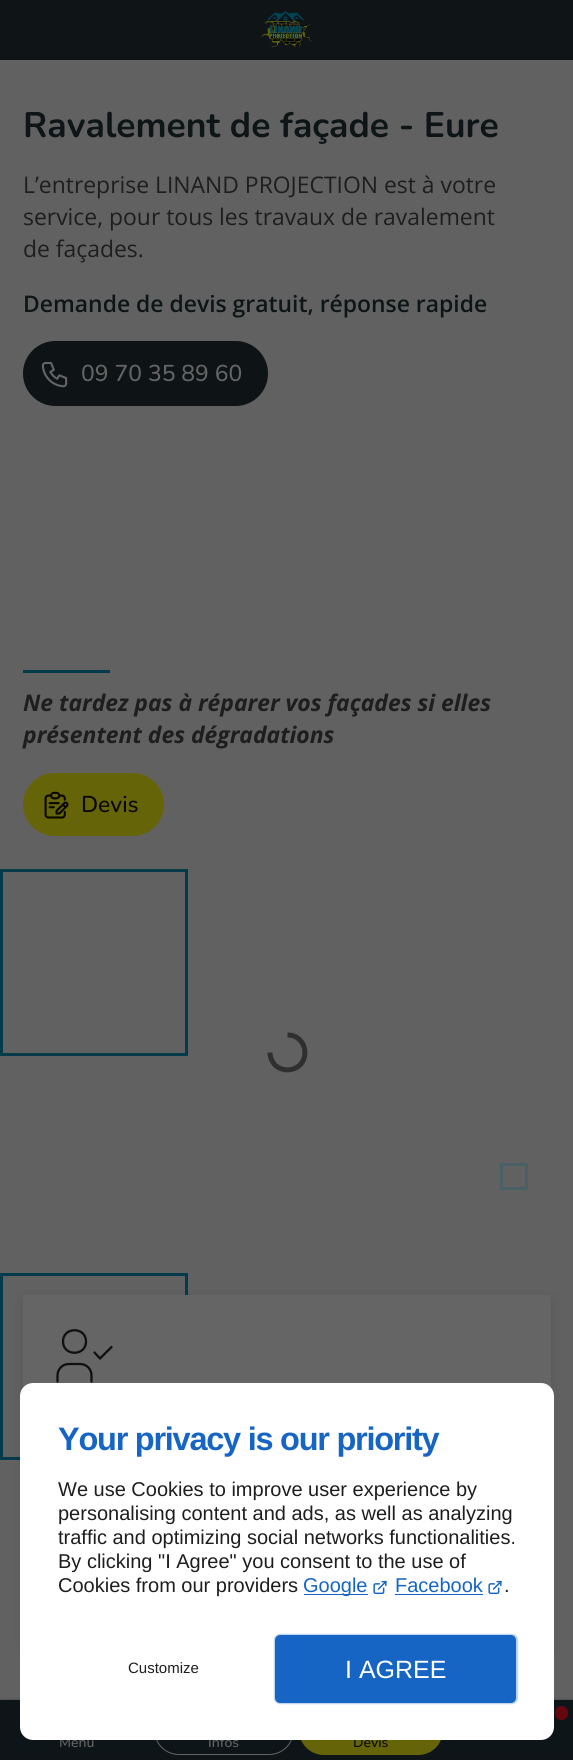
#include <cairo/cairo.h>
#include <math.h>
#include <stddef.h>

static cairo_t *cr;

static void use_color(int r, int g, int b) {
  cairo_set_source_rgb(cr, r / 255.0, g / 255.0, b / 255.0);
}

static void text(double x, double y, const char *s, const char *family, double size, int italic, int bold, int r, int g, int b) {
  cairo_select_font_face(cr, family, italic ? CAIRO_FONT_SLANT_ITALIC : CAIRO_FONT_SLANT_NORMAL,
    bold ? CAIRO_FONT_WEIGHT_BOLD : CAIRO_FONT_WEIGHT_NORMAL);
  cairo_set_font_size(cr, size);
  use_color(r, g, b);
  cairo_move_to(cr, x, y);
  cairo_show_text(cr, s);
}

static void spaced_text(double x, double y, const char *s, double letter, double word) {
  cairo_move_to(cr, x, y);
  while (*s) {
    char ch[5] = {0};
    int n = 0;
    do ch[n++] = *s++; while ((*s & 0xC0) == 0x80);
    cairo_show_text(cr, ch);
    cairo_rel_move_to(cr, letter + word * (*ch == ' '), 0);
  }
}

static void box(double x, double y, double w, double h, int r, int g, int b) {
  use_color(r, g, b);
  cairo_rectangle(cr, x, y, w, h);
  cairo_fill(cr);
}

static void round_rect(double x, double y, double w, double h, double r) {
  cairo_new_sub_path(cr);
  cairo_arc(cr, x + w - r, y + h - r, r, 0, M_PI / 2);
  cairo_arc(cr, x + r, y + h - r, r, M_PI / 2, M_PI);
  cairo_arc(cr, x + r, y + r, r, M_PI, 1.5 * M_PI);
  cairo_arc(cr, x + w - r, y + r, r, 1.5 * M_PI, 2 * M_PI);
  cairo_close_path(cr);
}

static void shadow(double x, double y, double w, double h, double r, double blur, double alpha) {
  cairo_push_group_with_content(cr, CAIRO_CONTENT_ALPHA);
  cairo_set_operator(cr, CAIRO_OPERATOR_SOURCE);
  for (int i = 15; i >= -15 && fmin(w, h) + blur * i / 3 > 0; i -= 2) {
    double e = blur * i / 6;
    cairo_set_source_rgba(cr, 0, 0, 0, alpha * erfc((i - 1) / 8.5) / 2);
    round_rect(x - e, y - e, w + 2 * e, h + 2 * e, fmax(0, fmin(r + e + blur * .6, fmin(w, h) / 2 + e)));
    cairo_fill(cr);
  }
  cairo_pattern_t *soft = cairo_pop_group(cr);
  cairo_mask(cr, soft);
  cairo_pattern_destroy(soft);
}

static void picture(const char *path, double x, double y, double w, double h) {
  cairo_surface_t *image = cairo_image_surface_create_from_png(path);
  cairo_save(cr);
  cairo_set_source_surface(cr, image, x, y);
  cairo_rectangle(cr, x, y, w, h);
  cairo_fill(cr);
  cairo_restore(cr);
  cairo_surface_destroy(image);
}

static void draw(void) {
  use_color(15, 20, 22);
  cairo_paint(cr);
  box(0, 60, 573, 1640, 97, 97, 97);
  use_color(14, 19, 21);
  round_rect(23, 341, 245, 65, 32.5);
  cairo_fill(cr);
  round_rect(23.5, 341.5, 244, 64, 32);
  cairo_set_source_rgba(cr, 0.055, 0.075, 0.082, 0.15);
  cairo_set_line_width(cr, 1);
  cairo_stroke(cr);
  picture("img_01.png", 41, 361, 27, 27);
  box(23, 670, 87, 3, 3, 59, 74);
  use_color(102, 100, 8);
  round_rect(23, 773, 141, 63, 31.5);
  cairo_fill(cr);
  round_rect(23.5, 773.5, 140, 62, 31);
  cairo_set_source_rgba(cr, 0.4, 0.392, 0.031, 0.15);
  cairo_stroke(cr);
  picture("img_02.png", 44, 791, 25, 28);
  cairo_new_path(cr);
  cairo_move_to(cr, 287.5, 1035);
  cairo_curve_to(cr, 308.5, 1035, 311.5, 1065.5, 291, 1069.5);
  cairo_curve_to(cr, 286.5, 1070.5, 281.5, 1069.5, 277.5, 1067);
  cairo_curve_to(cr, 273, 1064, 270, 1058.5, 270, 1052.5);
  use_color(47, 47, 47);
  cairo_set_line_width(cr, 5);
  cairo_stroke(cr);
  cairo_rectangle(cr, 1.5, 870.5, 185, 184);
  use_color(3, 59, 74);
  cairo_set_line_width(cr, 3);
  cairo_stroke(cr);
  cairo_rectangle(cr, 501.5, 1164.5, 25, 24);
  use_color(72, 96, 102);
  cairo_stroke(cr);
  cairo_rectangle(cr, 1.5, 1274.5, 185, 184);
  use_color(3, 59, 74);
  cairo_stroke(cr);
  use_color(10, 26, 31);
  shadow(25, 1300, 524, 348, 0, 6, 0.2);
  box(23, 1295, 528, 93, 101, 101, 101);
  cairo_new_path(cr);
  cairo_move_to(cr, 57.5, 1381.5);
  cairo_line_to(cr, 57.5, 1375.5);
  cairo_curve_to(cr, 57.5, 1369, 62.5, 1364, 69, 1364);
  cairo_line_to(cr, 80, 1364);
  cairo_curve_to(cr, 86.5, 1364, 91.5, 1369, 91.5, 1375.5);
  cairo_line_to(cr, 91.5, 1381.5);
  cairo_move_to(cr, 94.5, 1352.5);
  cairo_line_to(cr, 100, 1358.5);
  cairo_line_to(cr, 111.5, 1347);
  cairo_move_to(cr, 86, 1341.5);
  cairo_curve_to(cr, 86, 1356.5, 63, 1356.5, 63, 1341.5);
  cairo_curve_to(cr, 63, 1326.5, 86, 1326.5, 86, 1341.5);
  cairo_close_path(cr);
  use_color(15, 16, 18);
  cairo_set_line_width(cr, 2.3);
  cairo_set_line_cap(cr, CAIRO_LINE_CAP_ROUND);
  cairo_set_line_join(cr, CAIRO_LINE_JOIN_ROUND);
  cairo_stroke(cr);
  picture("img_04.png", 261, 11, 51, 37);
  use_color(10, 26, 31);
  shadow(1, 1699, 572, 57, 0, 1, 0.2);
  use_color(102, 7, 15);
  round_rect(555, 1706, 13, 14, 6.5);
  cairo_fill(cr);
  round_rect(154.5, 1705.5, 139, 49, 24.5);
  use_color(100, 100, 100);
  cairo_set_line_width(cr, 1);
  cairo_set_line_cap(cr, CAIRO_LINE_CAP_BUTT);
  cairo_set_line_join(cr, CAIRO_LINE_JOIN_MITER);
  cairo_stroke(cr);
  use_color(102, 100, 8);
  round_rect(299, 1705, 144, 50, 25);
  cairo_fill(cr);
  round_rect(299.5, 1705.5, 143, 49, 24.5);
  cairo_set_source_rgba(cr, 0.4, 0.392, 0.031, 0.15);
  cairo_stroke(cr);
  text(23, 137, "Ravalement de façade - Eure", "Nunito", 35.5, 0, 1, 14, 21, 23);
  text(23, 193, "L’entreprise LINAND PROJECTION est à votre", "Open Sans", 22.9, 0, 0, 30, 30, 31);
  text(23, 225, "service, pour tous les travaux de ravalement", "Open Sans", 22.9, 0, 0, 30, 30, 31);
  text(23, 257, "de façades.", "Open Sans", 22.9, 0, 0, 30, 30, 31);
  text(23, 312, "Demande de devis gratuit, réponse rapide", "Open Sans SemiBold", 22.9, 0, 0, 14, 21, 23);
  text(81, 381, "09 70 35 89 60", "Nunito Medium", 22.9, 0, 0, 100, 100, 100);
  text(23, 711, "Ne tardez pas à réparer vos façades si elles", "Open Sans", 22.9, 1, 1, 30, 30, 31);
  text(23, 743, "présentent des dégradations", "Open Sans", 22.9, 1, 1, 30, 30, 31);
  text(81, 812, "Devis", "Nunito Medium", 22.9, 0, 0, 8, 8, 0);
  text(59, 1747, "Menu", "Nunito Medium", 14, 0, 0, 100, 100, 100);
  text(208, 1747, "Infos", "Nunito Medium", 14, 0, 0, 100, 100, 100);
  text(353, 1747, "Devis", "Nunito Medium", 14, 0, 0, 8, 8, 0);
  use_color(255, 255, 255);
  round_rect(20, 1383, 534, 357, 13);
  cairo_fill(cr);
  picture("img_03.png", 488, 1580, 14, 15);
  picture("img_03.png", 373, 1580, 14, 15);
  use_color(22, 101, 196);
  shadow(274, 1634, 244, 70, 6, 0.5, 0.3);
  use_color(22, 101, 196);
  round_rect(276.5, 1636.5, 238, 65, 3.5);
  cairo_fill_preserve(cr);
  cairo_set_line_width(cr, 3);
  cairo_stroke(cr);
  text(345, 1678, "I AGREE", "Liberation Sans", 25, 0, 0, 255, 255, 255);
  text(128, 1673, "Customize", "Liberation Sans", 15, 0, 0, 30, 30, 31);
  text(504, 1592, ".", "Liberation Sans", 20, 0, 0, 30, 30, 31);
  text(395, 1592, "Facebook", "Liberation Sans", 20, 0, 0, 22, 101, 196);
  box(395, 1594, 88, 1, 22, 101, 196);
  box(304, 1594, 64, 1, 22, 101, 196);
  text(303, 1592, "Google", "Liberation Sans", 20, 0, 0, 22, 101, 196);
  text(58, 1592, "Cookies from our providers", "Liberation Sans", 20, 0, 0, 30, 30, 31);
  text(58, 1568, "By clicking \"I Agree\" you consent to the use of", "Liberation Sans", 20, 0, 0, 30, 30, 31);
  text(58, 1544, "traffic and optimizing social networks functionalities.", "Liberation Sans", 20, 0, 0, 30, 30, 31);
  text(58, 1520, "personalising content and ads, as well as analyzing", "Liberation Sans", 20, 0, 0, 30, 30, 31);
  text(58, 1496, "We use Cookies to improve user experience by", "Liberation Sans", 20, 0, 0, 30, 30, 31);
  cairo_select_font_face(cr, "Liberation Sans", CAIRO_FONT_SLANT_NORMAL, CAIRO_FONT_WEIGHT_BOLD);
  cairo_set_font_size(cr, 32.5);
  use_color(22, 101, 196);
  spaced_text(58, 1450, "Your privacy is our priority", -1.25, 0);
}

int main(void) {
  cairo_surface_t *surface = cairo_image_surface_create(CAIRO_FORMAT_RGB24, 573, 1760);
  cr = cairo_create(surface);
  cairo_font_options_t *options = cairo_font_options_create();
  cairo_font_options_set_hint_metrics(options, CAIRO_HINT_METRICS_OFF);
  cairo_font_options_set_hint_style(options, CAIRO_HINT_STYLE_NONE);
  cairo_set_font_options(cr, options);
  cairo_set_miter_limit(cr, 4);
  draw();
  cairo_surface_write_to_png(surface, "out.png");
  cairo_font_options_destroy(options);
  cairo_destroy(cr);
  cairo_surface_destroy(surface);
  return 0;
}
